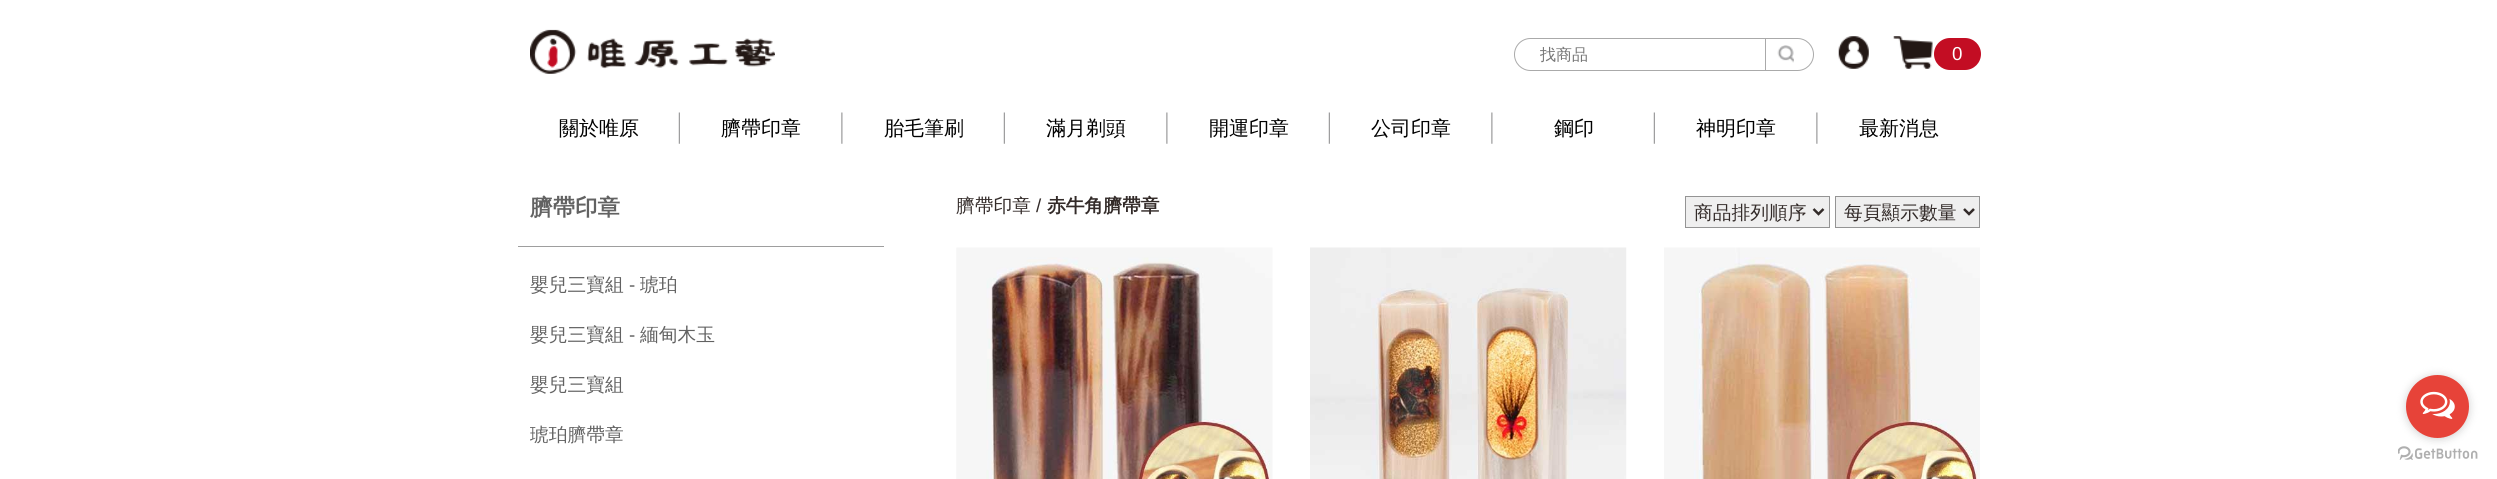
#include <cairo/cairo.h>
#include <math.h>
#include <stddef.h>

static cairo_t *cr;

static void use_color(int r, int g, int b) {
  cairo_set_source_rgb(cr, r / 255.0, g / 255.0, b / 255.0);
}

static void text(double x, double y, const char *s, const char *family, double size, int italic, int bold, int r, int g, int b) {
  cairo_select_font_face(cr, family, italic ? CAIRO_FONT_SLANT_ITALIC : CAIRO_FONT_SLANT_NORMAL,
    bold ? CAIRO_FONT_WEIGHT_BOLD : CAIRO_FONT_WEIGHT_NORMAL);
  cairo_set_font_size(cr, size);
  use_color(r, g, b);
  cairo_move_to(cr, x, y);
  cairo_show_text(cr, s);
}

static void box(double x, double y, double w, double h, int r, int g, int b) {
  use_color(r, g, b);
  cairo_rectangle(cr, x, y, w, h);
  cairo_fill(cr);
}

static void round_rect(double x, double y, double w, double h, double r) {
  cairo_new_sub_path(cr);
  cairo_arc(cr, x + w - r, y + h - r, r, 0, M_PI / 2);
  cairo_arc(cr, x + r, y + h - r, r, M_PI / 2, M_PI);
  cairo_arc(cr, x + r, y + r, r, M_PI, 1.5 * M_PI);
  cairo_arc(cr, x + w - r, y + r, r, 1.5 * M_PI, 2 * M_PI);
  cairo_close_path(cr);
}

static void shadow(double x, double y, double w, double h, double r, double blur, double alpha) {
  cairo_push_group_with_content(cr, CAIRO_CONTENT_ALPHA);
  cairo_set_operator(cr, CAIRO_OPERATOR_SOURCE);
  for (int i = 15; i >= -15 && fmin(w, h) + blur * i / 3 > 0; i -= 2) {
    double e = blur * i / 6;
    cairo_set_source_rgba(cr, 0, 0, 0, alpha * erfc((i - 1) / 8.5) / 2);
    round_rect(x - e, y - e, w + 2 * e, h + 2 * e, fmax(0, fmin(r + e + blur * .6, fmin(w, h) / 2 + e)));
    cairo_fill(cr);
  }
  cairo_pattern_t *soft = cairo_pop_group(cr);
  cairo_mask(cr, soft);
  cairo_pattern_destroy(soft);
}

static void picture(const char *path, double x, double y, double w, double h) {
  cairo_surface_t *image = cairo_image_surface_create_from_png(path);
  cairo_save(cr);
  cairo_set_source_surface(cr, image, x, y);
  cairo_rectangle(cr, x, y, w, h);
  cairo_fill(cr);
  cairo_restore(cr);
  cairo_surface_destroy(image);
}

static void draw(void) {
  use_color(255, 255, 255);
  cairo_paint(cr);
  picture("img_01.png", 530, 29, 245, 45);
  round_rect(1514.5, 38.5, 299, 32, 16);
  use_color(170, 170, 170);
  cairo_set_line_width(cr, 1);
  cairo_stroke(cr);
  box(1765, 39, 1, 31, 170, 170, 170);
  picture("img_02.png", 1777, 45, 17, 18);
  picture("img_03.png", 1838, 36, 31, 33);
  picture("img_04.png", 1893, 36, 40, 33);
  use_color(195, 13, 35);
  round_rect(1934, 38, 47, 32, 16);
  cairo_fill(cr);
  picture("img_05.png", 678, 112, 2, 32);
  picture("img_06.png", 841, 112, 2, 32);
  picture("img_05.png", 1003, 112, 2, 32);
  picture("img_06.png", 1166, 112, 2, 32);
  picture("img_05.png", 1328, 112, 2, 32);
  picture("img_06.png", 1491, 112, 2, 32);
  picture("img_05.png", 1653, 112, 2, 32);
  picture("img_06.png", 1816, 112, 2, 32);
  box(518, 246, 366, 1, 158, 158, 158);
  use_color(239, 239, 239);
  cairo_rectangle(cr, 1685.5, 196.5, 144, 31);
  cairo_fill_preserve(cr);
  use_color(148, 148, 148);
  cairo_stroke(cr);
  cairo_new_path(cr);
  cairo_move_to(cr, 1813.5, 209);
  cairo_line_to(cr, 1818.5, 214);
  cairo_line_to(cr, 1823.5, 209);
  use_color(51, 43, 41);
  cairo_set_line_width(cr, 2.5);
  cairo_stroke(cr);
  use_color(239, 239, 239);
  cairo_rectangle(cr, 1835.5, 196.5, 144, 31);
  cairo_fill_preserve(cr);
  use_color(148, 148, 148);
  cairo_set_line_width(cr, 1);
  cairo_stroke(cr);
  cairo_new_path(cr);
  cairo_move_to(cr, 1964, 209);
  cairo_line_to(cr, 1969, 214);
  cairo_line_to(cr, 1974, 209);
  use_color(51, 43, 41);
  cairo_set_line_width(cr, 2.5);
  cairo_stroke(cr);
  picture("img_07.png", 956, 247, 317, 232);
  picture("img_08.png", 1310, 247, 317, 232);
  picture("img_09.png", 1664, 247, 316, 232);
  picture("img_11.png", 2398, 446, 80, 14);
  use_color(136, 136, 136);
  shadow(2406, 376, 63, 63, 31.5, 4.5, 0.4);
  use_color(231, 67, 57);
  cairo_arc(cr, 2437.5, 406.5, 31.5, 0, 2 * M_PI);
  cairo_fill(cr);
  picture("img_10.png", 2420, 391, 35, 28);
  text(1540, 60, "找商品", "WenQuanYi Zen Hei Medium", 16, 0, 0, 117, 117, 117);
  text(1952, 60, "0", "Liberation Sans", 18.75, 0, 0, 255, 255, 255);
  text(559, 135, "關於唯原", "WenQuanYi Zen Hei Medium", 20, 0, 0, 0, 0, 0);
  text(721, 135, "臍帶印章", "WenQuanYi Zen Hei Medium", 20, 0, 0, 0, 0, 0);
  text(884, 135, "胎毛筆刷", "WenQuanYi Zen Hei Medium", 20, 0, 0, 0, 0, 0);
  text(1046, 135, "滿月剃頭", "WenQuanYi Zen Hei Medium", 20, 0, 0, 0, 0, 0);
  text(1209, 135, "開運印章", "WenQuanYi Zen Hei Medium", 20, 0, 0, 0, 0, 0);
  text(1371, 135, "公司印章", "WenQuanYi Zen Hei Medium", 20, 0, 0, 0, 0, 0);
  text(1554, 135, "鋼印", "WenQuanYi Zen Hei Medium", 20, 0, 0, 0, 0, 0);
  text(1696, 135, "神明印章", "WenQuanYi Zen Hei Medium", 20, 0, 0, 0, 0, 0);
  text(1859, 135, "最新消息", "WenQuanYi Zen Hei Medium", 20, 0, 0, 0, 0, 0);
  text(530, 215, "臍帶印章", "WenQuanYi Zen Hei", 22.5, 0, 1, 98, 98, 98);
  text(530, 291, "嬰兒三寶組", "WenQuanYi Zen Hei Medium", 18.75, 0, 0, 98, 98, 98);
  text(629, 291, "-", "Liberation Sans", 18.75, 0, 0, 98, 98, 98);
  text(640, 291, "琥珀", "WenQuanYi Zen Hei Medium", 18.75, 0, 0, 98, 98, 98);
  text(530, 341, "嬰兒三寶組", "WenQuanYi Zen Hei Medium", 18.75, 0, 0, 98, 98, 98);
  text(629, 341, "-", "Liberation Sans", 18.75, 0, 0, 98, 98, 98);
  text(640, 341, "緬甸木玉", "WenQuanYi Zen Hei Medium", 18.75, 0, 0, 98, 98, 98);
  text(530, 391, "嬰兒三寶組", "WenQuanYi Zen Hei Medium", 18.75, 0, 0, 98, 98, 98);
  text(530, 441, "琥珀臍帶章", "WenQuanYi Zen Hei Medium", 18.75, 0, 0, 98, 98, 98);
  text(956, 212, "臍帶印章", "WenQuanYi Zen Hei Medium", 18.75, 0, 0, 51, 43, 41);
  text(1036, 212, "/", "Liberation Sans", 18.75, 0, 0, 51, 43, 41);
  text(1047, 212, "赤牛角臍帶章", "WenQuanYi Zen Hei", 18.75, 0, 1, 51, 43, 41);
  text(1694, 219, "商品排列順序", "WenQuanYi Zen Hei Medium", 18.75, 0, 0, 51, 43, 41);
  text(1844, 219, "每頁顯示數量", "WenQuanYi Zen Hei Medium", 18.75, 0, 0, 51, 43, 41);
}

int main(void) {
  cairo_surface_t *surface = cairo_image_surface_create(CAIRO_FORMAT_RGB24, 2497, 479);
  cr = cairo_create(surface);
  cairo_font_options_t *options = cairo_font_options_create();
  cairo_font_options_set_hint_metrics(options, CAIRO_HINT_METRICS_OFF);
  cairo_font_options_set_hint_style(options, CAIRO_HINT_STYLE_NONE);
  cairo_set_font_options(cr, options);
  cairo_set_miter_limit(cr, 4);
  draw();
  cairo_surface_write_to_png(surface, "out.png");
  cairo_font_options_destroy(options);
  cairo_destroy(cr);
  cairo_surface_destroy(surface);
  return 0;
}
